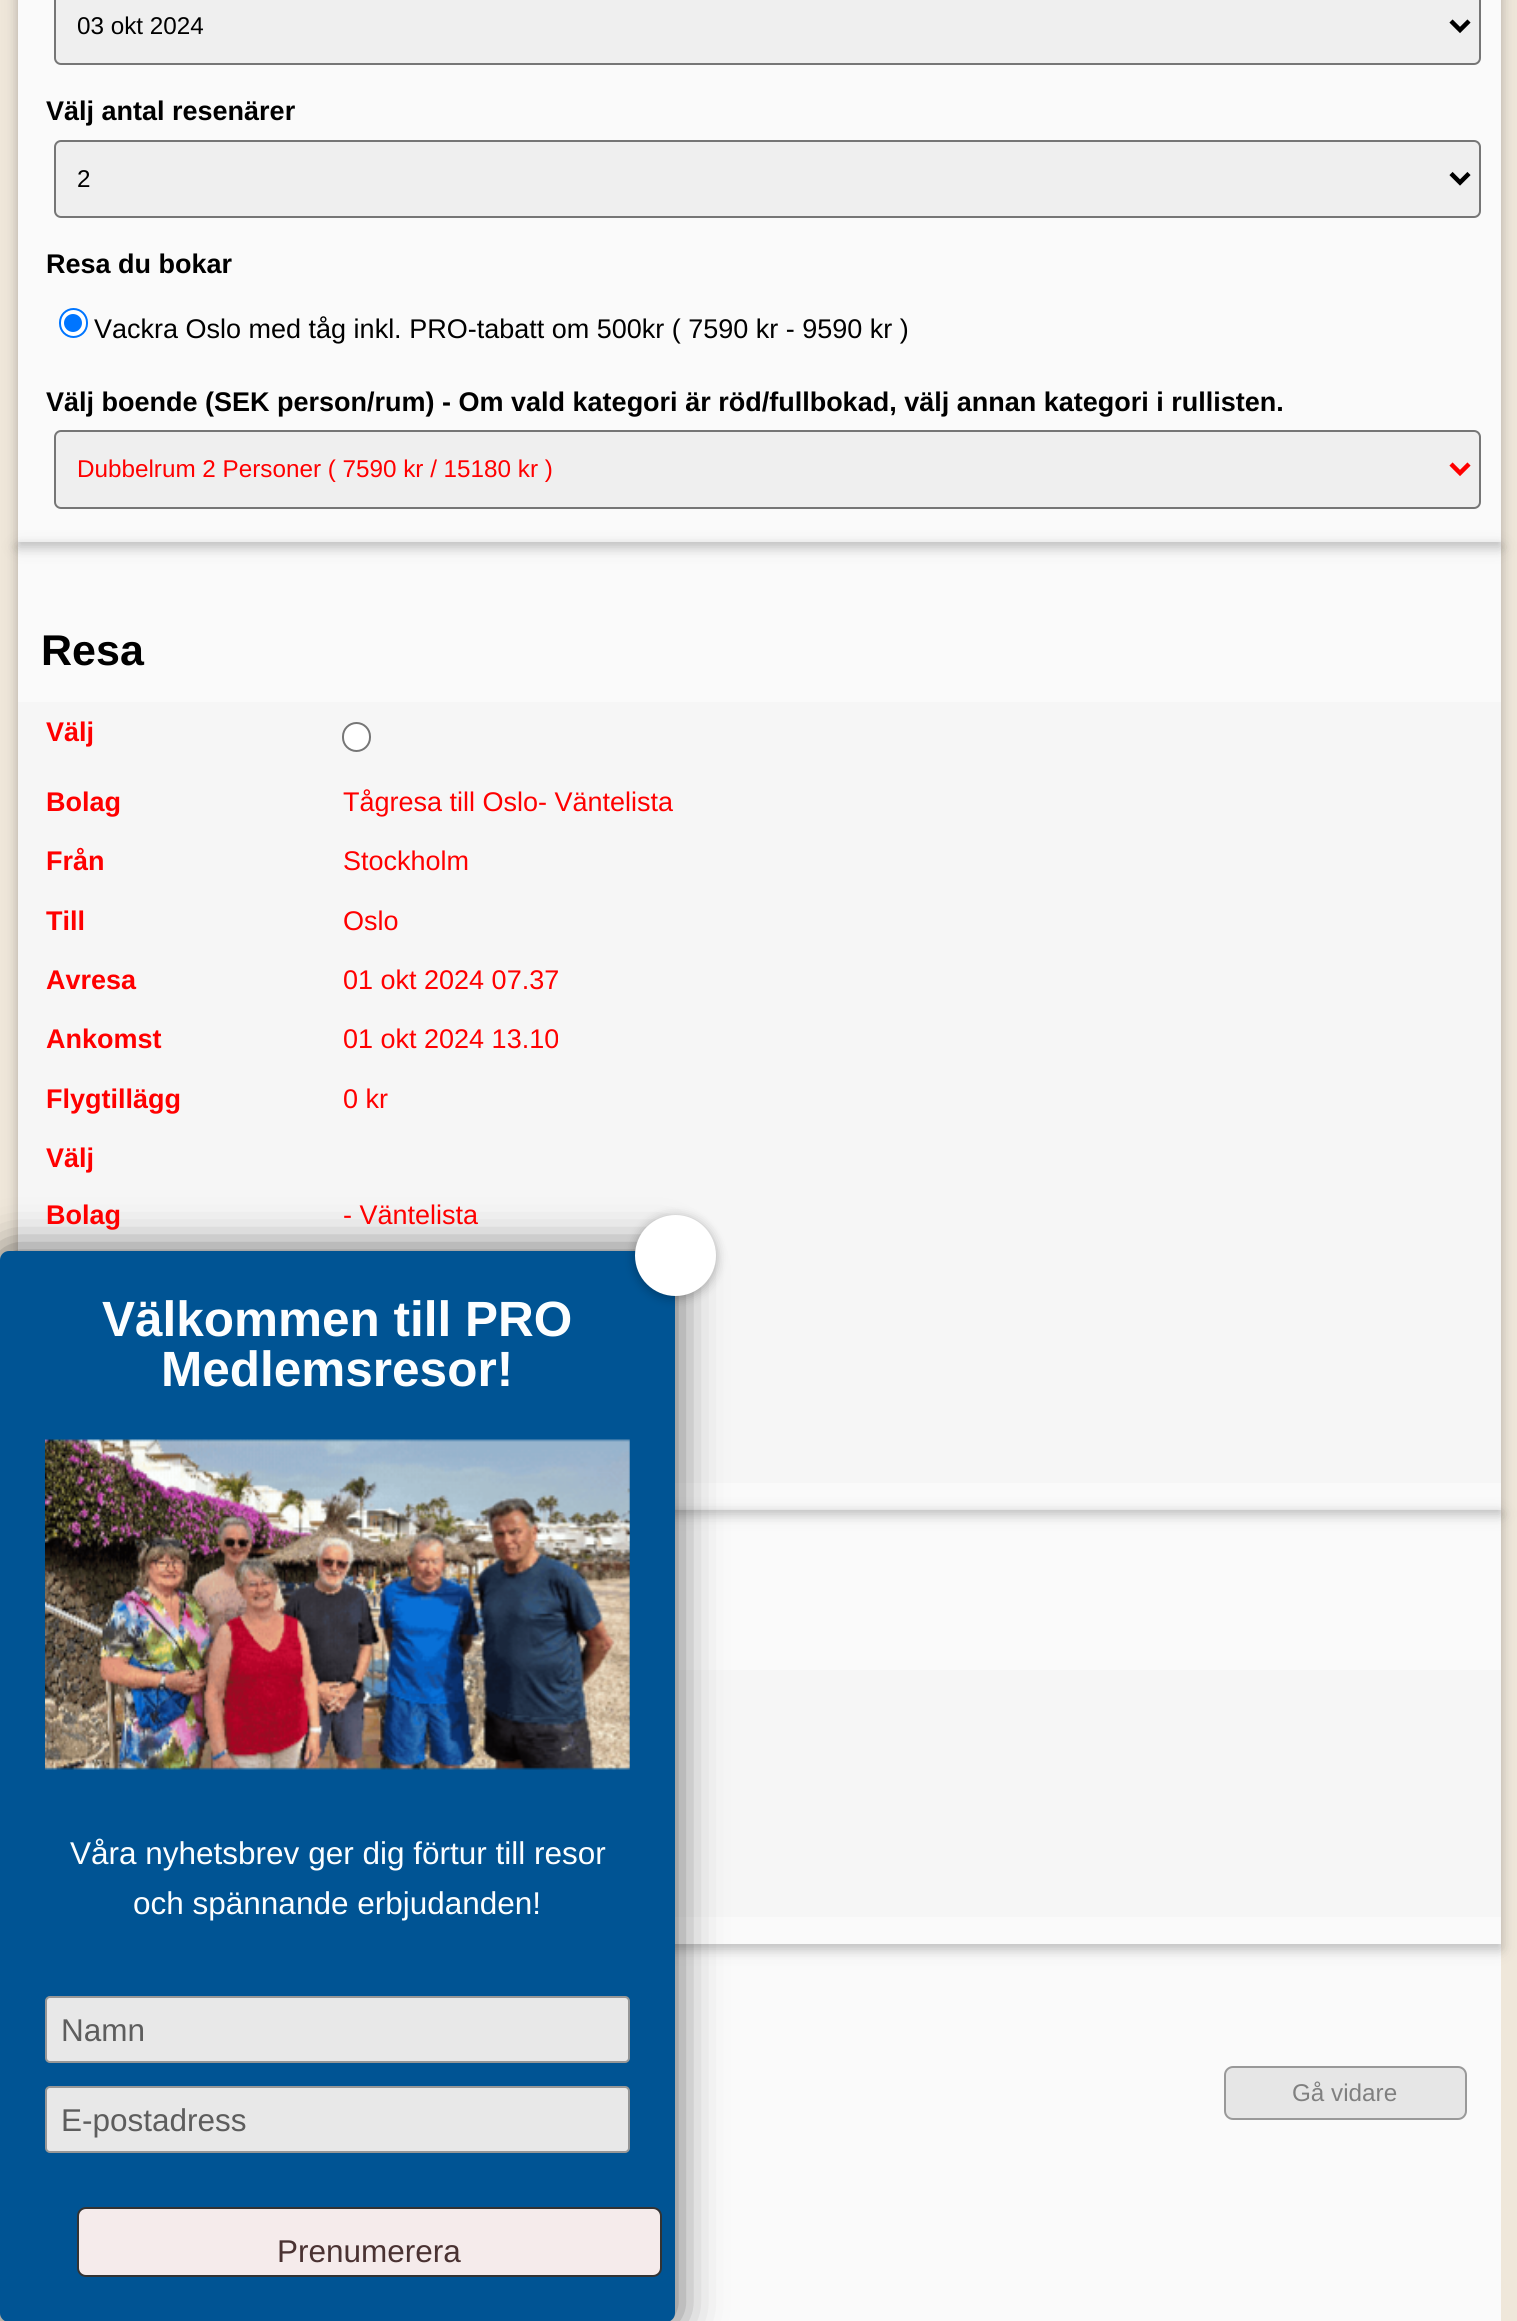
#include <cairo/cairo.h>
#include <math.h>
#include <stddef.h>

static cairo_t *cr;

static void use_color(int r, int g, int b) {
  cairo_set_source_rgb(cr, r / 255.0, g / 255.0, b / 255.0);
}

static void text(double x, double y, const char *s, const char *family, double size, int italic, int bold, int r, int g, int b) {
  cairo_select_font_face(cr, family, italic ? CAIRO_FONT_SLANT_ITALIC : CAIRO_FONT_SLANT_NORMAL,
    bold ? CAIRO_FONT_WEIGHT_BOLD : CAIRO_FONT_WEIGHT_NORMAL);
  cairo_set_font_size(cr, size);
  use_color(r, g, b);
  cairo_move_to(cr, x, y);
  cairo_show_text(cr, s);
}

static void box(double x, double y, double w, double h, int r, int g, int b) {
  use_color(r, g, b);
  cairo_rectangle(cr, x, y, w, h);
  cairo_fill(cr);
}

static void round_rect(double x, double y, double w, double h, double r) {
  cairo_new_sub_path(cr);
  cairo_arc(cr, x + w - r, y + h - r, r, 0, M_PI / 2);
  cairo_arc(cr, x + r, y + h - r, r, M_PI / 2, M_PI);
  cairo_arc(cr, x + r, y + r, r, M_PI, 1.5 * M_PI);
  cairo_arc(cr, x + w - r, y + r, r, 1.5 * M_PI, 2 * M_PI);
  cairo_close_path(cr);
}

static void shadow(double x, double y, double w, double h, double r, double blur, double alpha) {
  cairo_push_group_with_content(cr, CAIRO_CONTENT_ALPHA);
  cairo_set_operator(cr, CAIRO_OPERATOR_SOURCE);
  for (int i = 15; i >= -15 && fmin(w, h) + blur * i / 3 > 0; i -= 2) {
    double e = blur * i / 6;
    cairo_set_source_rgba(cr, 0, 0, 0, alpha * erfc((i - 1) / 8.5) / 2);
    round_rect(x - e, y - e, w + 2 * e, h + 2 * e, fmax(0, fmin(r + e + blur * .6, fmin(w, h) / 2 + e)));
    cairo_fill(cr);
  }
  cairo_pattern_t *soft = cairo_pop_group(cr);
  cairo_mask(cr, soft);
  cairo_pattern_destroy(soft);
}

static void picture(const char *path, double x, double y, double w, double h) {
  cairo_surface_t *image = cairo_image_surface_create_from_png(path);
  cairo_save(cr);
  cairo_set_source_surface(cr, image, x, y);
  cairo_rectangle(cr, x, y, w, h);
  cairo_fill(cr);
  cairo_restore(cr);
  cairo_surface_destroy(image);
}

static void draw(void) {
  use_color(239, 231, 218);
  cairo_paint(cr);
  box(18, 0, 1483, 2321, 250, 250, 250);
  cairo_save(cr);
  cairo_set_fill_rule(cr, CAIRO_FILL_RULE_EVEN_ODD);
  cairo_new_path(cr);
  cairo_move_to(cr, 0, 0);
  cairo_line_to(cr, 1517, 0);
  cairo_line_to(cr, 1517, 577);
  cairo_line_to(cr, 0, 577);
  cairo_close_path(cr);
  cairo_move_to(cr, 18, -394);
  cairo_line_to(cr, 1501, -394);
  cairo_line_to(cr, 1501, 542);
  cairo_line_to(cr, 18, 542);
  cairo_close_path(cr);
  cairo_clip(cr);
  use_color(0, 0, 0);
  shadow(18, -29, 1483, 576, 0, 9.5, 0.12);
  cairo_restore(cr);
  cairo_save(cr);
  cairo_set_fill_rule(cr, CAIRO_FILL_RULE_EVEN_ODD);
  cairo_new_path(cr);
  cairo_move_to(cr, 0, 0);
  cairo_line_to(cr, 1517, 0);
  cairo_line_to(cr, 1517, 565);
  cairo_line_to(cr, 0, 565);
  cairo_close_path(cr);
  cairo_move_to(cr, 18, -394);
  cairo_line_to(cr, 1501, -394);
  cairo_line_to(cr, 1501, 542);
  cairo_line_to(cr, 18, 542);
  cairo_close_path(cr);
  cairo_clip(cr);
  use_color(0, 0, 0);
  shadow(18, -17, 1483, 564, 0, 5.5, 0.16);
  cairo_restore(cr);
  use_color(239, 239, 239);
  round_rect(55, -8, 1425, 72, 6);
  cairo_fill_preserve(cr);
  use_color(118, 118, 118);
  cairo_stroke(cr);
  cairo_new_path(cr);
  cairo_move_to(cr, 1451, 21);
  cairo_line_to(cr, 1460, 30);
  cairo_line_to(cr, 1469, 21);
  use_color(0, 0, 0);
  cairo_set_line_width(cr, 4.5);
  cairo_stroke(cr);
  use_color(239, 239, 239);
  round_rect(55, 141, 1425, 76, 6);
  cairo_fill_preserve(cr);
  use_color(118, 118, 118);
  cairo_set_line_width(cr, 2);
  cairo_stroke(cr);
  cairo_new_path(cr);
  cairo_move_to(cr, 1451, 173.5);
  cairo_line_to(cr, 1460, 182.5);
  cairo_line_to(cr, 1469, 173.5);
  use_color(0, 0, 0);
  cairo_set_line_width(cr, 4.5);
  cairo_stroke(cr);
  use_color(255, 255, 255);
  round_rect(60, 309, 27, 28, 13.5);
  cairo_fill_preserve(cr);
  use_color(0, 117, 255);
  cairo_set_line_width(cr, 2);
  cairo_stroke(cr);
  cairo_arc(cr, 73, 323, 9, 0, 2 * M_PI);
  cairo_fill(cr);
  use_color(239, 239, 239);
  round_rect(55, 431, 1425, 77, 6);
  cairo_fill_preserve(cr);
  use_color(118, 118, 118);
  cairo_stroke(cr);
  cairo_new_path(cr);
  cairo_move_to(cr, 1451, 464);
  cairo_line_to(cr, 1460, 473);
  cairo_line_to(cr, 1469, 464);
  use_color(255, 0, 0);
  cairo_set_line_width(cr, 4.5);
  cairo_stroke(cr);
  cairo_save(cr);
  cairo_set_fill_rule(cr, CAIRO_FILL_RULE_EVEN_ODD);
  cairo_new_path(cr);
  cairo_move_to(cr, 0, 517);
  cairo_line_to(cr, 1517, 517);
  cairo_line_to(cr, 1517, 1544);
  cairo_line_to(cr, 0, 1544);
  cairo_close_path(cr);
  cairo_move_to(cr, 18, 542);
  cairo_line_to(cr, 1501, 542);
  cairo_line_to(cr, 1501, 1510);
  cairo_line_to(cr, 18, 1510);
  cairo_close_path(cr);
  cairo_clip(cr);
  use_color(0, 0, 0);
  shadow(18, 547, 1483, 967, 0, 9.5, 0.12);
  cairo_restore(cr);
  cairo_save(cr);
  cairo_set_fill_rule(cr, CAIRO_FILL_RULE_EVEN_ODD);
  cairo_new_path(cr);
  cairo_move_to(cr, 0, 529);
  cairo_line_to(cr, 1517, 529);
  cairo_line_to(cr, 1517, 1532);
  cairo_line_to(cr, 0, 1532);
  cairo_close_path(cr);
  cairo_move_to(cr, 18, 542);
  cairo_line_to(cr, 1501, 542);
  cairo_line_to(cr, 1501, 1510);
  cairo_line_to(cr, 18, 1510);
  cairo_close_path(cr);
  cairo_clip(cr);
  use_color(0, 0, 0);
  shadow(18, 547, 1483, 967, 0, 5.5, 0.16);
  cairo_restore(cr);
  box(18, 702, 1483, 781, 246, 246, 246);
  use_color(255, 255, 255);
  round_rect(343, 723, 27, 28, 13.5);
  cairo_fill_preserve(cr);
  use_color(118, 118, 118);
  cairo_set_line_width(cr, 2);
  cairo_stroke(cr);
  cairo_save(cr);
  cairo_set_fill_rule(cr, CAIRO_FILL_RULE_EVEN_ODD);
  cairo_new_path(cr);
  cairo_move_to(cr, 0, 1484);
  cairo_line_to(cr, 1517, 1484);
  cairo_line_to(cr, 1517, 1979);
  cairo_line_to(cr, 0, 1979);
  cairo_close_path(cr);
  cairo_move_to(cr, 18, 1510);
  cairo_line_to(cr, 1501, 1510);
  cairo_line_to(cr, 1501, 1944);
  cairo_line_to(cr, 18, 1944);
  cairo_close_path(cr);
  cairo_clip(cr);
  use_color(0, 0, 0);
  shadow(18, 1514, 1483, 435, 0, 9.5, 0.12);
  cairo_restore(cr);
  cairo_save(cr);
  cairo_set_fill_rule(cr, CAIRO_FILL_RULE_EVEN_ODD);
  cairo_new_path(cr);
  cairo_move_to(cr, 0, 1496);
  cairo_line_to(cr, 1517, 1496);
  cairo_line_to(cr, 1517, 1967);
  cairo_line_to(cr, 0, 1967);
  cairo_close_path(cr);
  cairo_move_to(cr, 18, 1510);
  cairo_line_to(cr, 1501, 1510);
  cairo_line_to(cr, 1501, 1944);
  cairo_line_to(cr, 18, 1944);
  cairo_close_path(cr);
  cairo_clip(cr);
  use_color(0, 0, 0);
  shadow(18, 1514, 1483, 435, 0, 5.5, 0.16);
  cairo_restore(cr);
  box(675, 1670, 826, 247, 246, 246, 246);
  use_color(230, 230, 230);
  round_rect(1225, 2067, 241, 52, 8);
  cairo_fill_preserve(cr);
  use_color(153, 153, 153);
  cairo_stroke(cr);
  use_color(0, 0, 0);
  shadow(0, 1253, 675, 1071, 9, 22.5, 0.65);
  use_color(0, 84, 148);
  round_rect(0, 1251, 675, 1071, 9);
  cairo_fill(cr);
  use_color(0, 0, 0);
  shadow(635, 1217, 81, 81, 40.5, 5.5, 0.3);
  use_color(255, 255, 255);
  cairo_arc(cr, 675.5, 1255.5, 40.5, 0, 2 * M_PI);
  cairo_fill(cr);
  picture("img_01.png", 45, 1439, 585, 331);
  use_color(232, 232, 232);
  round_rect(46, 1997, 583, 65, 4);
  cairo_fill_preserve(cr);
  use_color(151, 151, 151);
  cairo_stroke(cr);
  use_color(232, 232, 232);
  round_rect(46, 2087, 583, 65, 4);
  cairo_fill_preserve(cr);
  use_color(151, 151, 151);
  cairo_stroke(cr);
  use_color(245, 235, 235);
  round_rect(78, 2208, 583, 68, 8);
  cairo_fill_preserve(cr);
  use_color(51, 51, 51);
  cairo_stroke(cr);
  text(77, 34, "03 okt 2024", "Liberation Sans", 24.25, 0, 0, 0, 0, 0);
  text(46, 120, "Välj antal resenärer", "Liberation Sans", 27, 0, 1, 0, 0, 0);
  text(77, 187, "2", "Liberation Sans", 24.25, 0, 0, 0, 0, 0);
  text(46, 273, "Resa du bokar", "Liberation Sans", 27, 0, 1, 0, 0, 0);
  text(94, 338, "Vackra Oslo med tåg inkl. PRO-tabatt om 500kr ( 7590 kr - 9590 kr )", "Liberation Sans", 27, 0, 0, 0, 0, 0);
  text(46, 411, "Välj boende (SEK person/rum) - Om vald kategori är röd/fullbokad, välj annan kategori i rullisten.", "Liberation Sans", 27, 0, 1, 0, 0, 0);
  text(77, 477, "Dubbelrum 2 Personer ( 7590 kr / 15180 kr )", "Liberation Sans", 24.25, 0, 0, 255, 0, 0);
  text(41, 665, "Resa", "Liberation Sans", 43, 0, 1, 0, 0, 0);
  text(46, 741, "Välj", "Liberation Sans", 27, 0, 1, 255, 0, 0);
  text(46, 811, "Bolag", "Liberation Sans", 27, 0, 1, 255, 0, 0);
  text(343, 811, "Tågresa till Oslo- Väntelista", "Liberation Sans", 27, 0, 0, 255, 0, 0);
  text(46, 870, "Från", "Liberation Sans", 27, 0, 1, 255, 0, 0);
  text(343, 870, "Stockholm", "Liberation Sans", 27, 0, 0, 255, 0, 0);
  text(46, 930, "Till", "Liberation Sans", 27, 0, 1, 255, 0, 0);
  text(343, 930, "Oslo", "Liberation Sans", 27, 0, 0, 255, 0, 0);
  text(46, 989, "Avresa", "Liberation Sans", 27, 0, 1, 255, 0, 0);
  text(343, 989, "01 okt 2024 07.37", "Liberation Sans", 27, 0, 0, 255, 0, 0);
  text(46, 1048, "Ankomst", "Liberation Sans", 27, 0, 1, 255, 0, 0);
  text(343, 1048, "01 okt 2024 13.10", "Liberation Sans", 27, 0, 0, 255, 0, 0);
  text(46, 1108, "Flygtillägg", "Liberation Sans", 27, 0, 1, 255, 0, 0);
  text(343, 1108, "0 kr", "Liberation Sans", 27, 0, 0, 255, 0, 0);
  text(46, 1167, "Välj", "Liberation Sans", 27, 0, 1, 255, 0, 0);
  text(46, 1224, "Bolag", "Liberation Sans", 27, 0, 1, 255, 0, 0);
  text(343, 1224, "- Väntelista", "Liberation Sans", 27, 0, 0, 255, 0, 0);
  text(1292, 2101, "Gå vidare", "Liberation Sans", 24.25, 0, 0, 128, 128, 128);
  text(102, 1336, "Välkommen till PRO", "Liberation Sans", 49.5, 0, 1, 252, 254, 255);
  text(161, 1386, "Medlemsresor!", "Liberation Sans", 49.5, 0, 1, 252, 254, 255);
  text(70, 1864, "Våra nyhetsbrev ger dig förtur till resor", "Liberation Sans", 31.5, 0, 0, 252, 254, 255);
  text(133, 1914, "och spännande erbjudanden!", "Liberation Sans", 31.5, 0, 0, 252, 254, 255);
  text(61, 2041, "Namn", "Liberation Sans", 31.5, 0, 0, 93, 93, 93);
  text(61, 2131, "E-postadress", "Liberation Sans", 31.5, 0, 0, 93, 93, 93);
  text(277, 2262, "Prenumerera", "Liberation Sans", 31.5, 0, 0, 74, 50, 50);
}

int main(void) {
  cairo_surface_t *surface = cairo_image_surface_create(CAIRO_FORMAT_RGB24, 1517, 2321);
  cr = cairo_create(surface);
  cairo_font_options_t *options = cairo_font_options_create();
  cairo_font_options_set_hint_metrics(options, CAIRO_HINT_METRICS_OFF);
  cairo_font_options_set_hint_style(options, CAIRO_HINT_STYLE_NONE);
  cairo_set_font_options(cr, options);
  cairo_set_miter_limit(cr, 4);
  draw();
  cairo_surface_write_to_png(surface, "out.png");
  cairo_font_options_destroy(options);
  cairo_destroy(cr);
  cairo_surface_destroy(surface);
  return 0;
}
